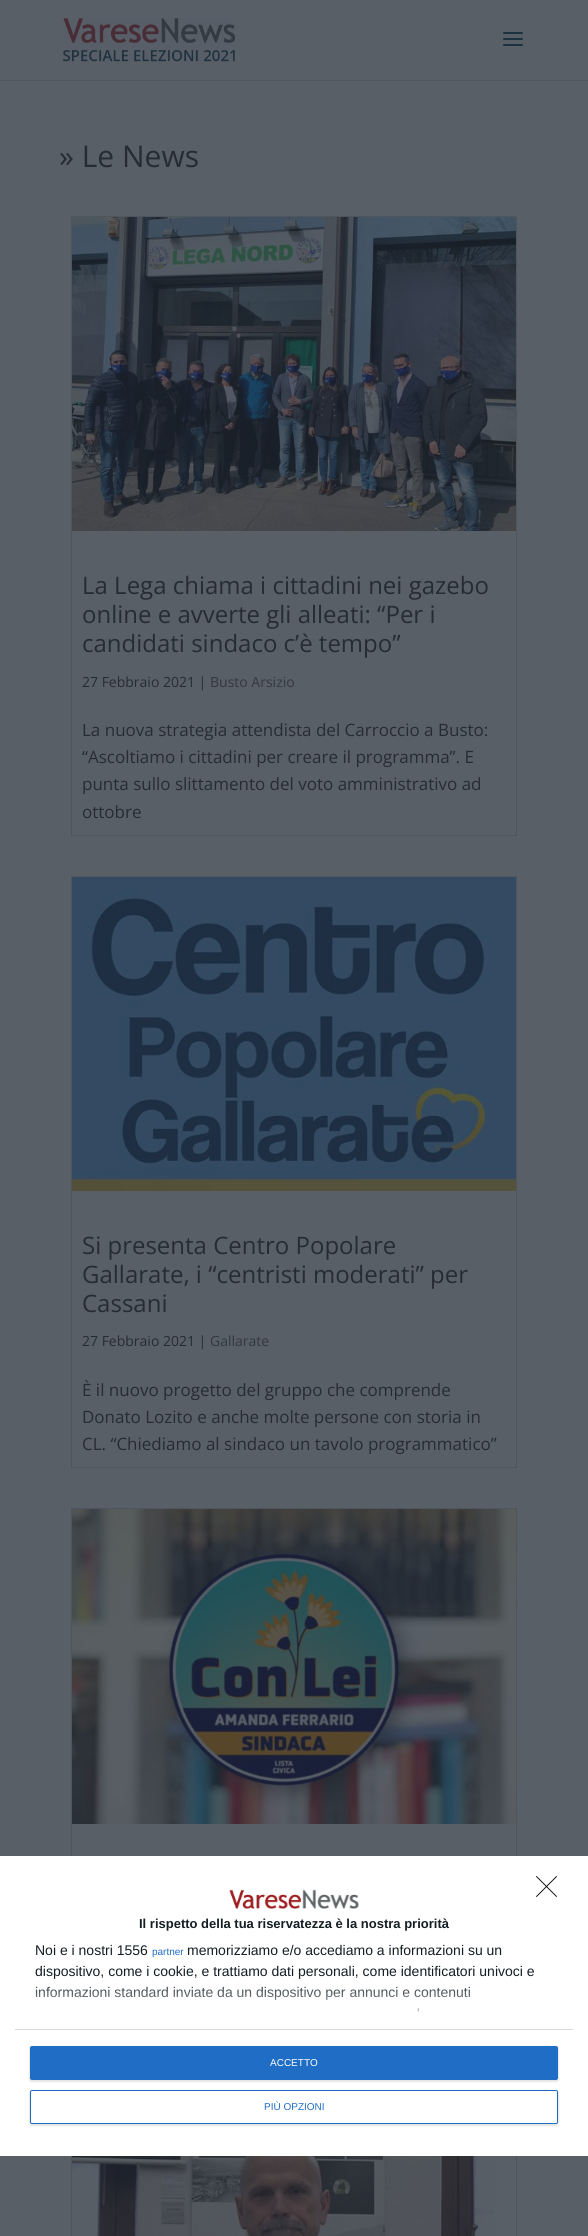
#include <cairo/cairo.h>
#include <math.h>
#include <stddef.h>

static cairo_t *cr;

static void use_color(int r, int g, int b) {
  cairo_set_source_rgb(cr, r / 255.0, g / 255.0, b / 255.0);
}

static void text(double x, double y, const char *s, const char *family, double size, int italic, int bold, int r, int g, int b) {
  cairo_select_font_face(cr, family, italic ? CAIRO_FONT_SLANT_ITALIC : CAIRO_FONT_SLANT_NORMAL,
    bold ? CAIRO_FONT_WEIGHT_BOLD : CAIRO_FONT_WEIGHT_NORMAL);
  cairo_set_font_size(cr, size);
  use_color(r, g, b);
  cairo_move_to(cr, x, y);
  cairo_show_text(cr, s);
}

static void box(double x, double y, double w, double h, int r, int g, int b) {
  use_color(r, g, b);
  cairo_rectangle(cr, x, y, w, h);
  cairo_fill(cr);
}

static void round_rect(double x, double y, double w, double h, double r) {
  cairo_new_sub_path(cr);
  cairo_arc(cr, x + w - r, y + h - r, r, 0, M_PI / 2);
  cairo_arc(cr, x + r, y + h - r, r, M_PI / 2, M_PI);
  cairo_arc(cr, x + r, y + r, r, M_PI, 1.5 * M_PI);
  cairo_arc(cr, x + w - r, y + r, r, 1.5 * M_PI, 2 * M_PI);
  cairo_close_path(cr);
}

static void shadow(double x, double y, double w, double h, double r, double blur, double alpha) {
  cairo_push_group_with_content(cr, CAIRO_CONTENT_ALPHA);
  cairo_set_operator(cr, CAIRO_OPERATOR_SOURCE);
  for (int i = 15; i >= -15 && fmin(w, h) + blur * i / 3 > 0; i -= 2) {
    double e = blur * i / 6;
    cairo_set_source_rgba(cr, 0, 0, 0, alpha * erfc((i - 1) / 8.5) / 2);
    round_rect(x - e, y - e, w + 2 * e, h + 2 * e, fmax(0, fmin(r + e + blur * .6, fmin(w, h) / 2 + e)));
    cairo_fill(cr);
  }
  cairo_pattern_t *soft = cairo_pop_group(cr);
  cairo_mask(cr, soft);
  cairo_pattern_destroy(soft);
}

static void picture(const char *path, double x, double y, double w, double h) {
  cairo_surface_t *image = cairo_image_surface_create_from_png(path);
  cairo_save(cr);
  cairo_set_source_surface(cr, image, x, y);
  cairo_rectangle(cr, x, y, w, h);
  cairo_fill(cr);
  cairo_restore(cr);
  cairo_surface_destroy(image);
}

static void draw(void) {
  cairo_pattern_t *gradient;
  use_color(89, 95, 103);
  cairo_paint(cr);
  box(0, 80, 588, 1, 82, 88, 97);
  picture("img_01.png", 63, 18, 172, 44);
  picture("img_02.png", 503, 32, 20, 14);
  cairo_rectangle(cr, 71.5, 216.5, 445, 619);
  use_color(79, 85, 93);
  cairo_set_line_width(cr, 1);
  cairo_stroke(cr);
  picture("img_03.png", 72, 217, 444, 314);
  cairo_rectangle(cr, 71.5, 876.5, 445, 591);
  cairo_stroke(cr);
  picture("img_04.png", 72, 877, 444, 314);
  cairo_rectangle(cr, 71.5, 1508.5, 445, 590);
  cairo_stroke(cr);
  picture("img_05.png", 72, 1509, 444, 315);
  cairo_rectangle(cr, 71.5, 2139.5, 445, 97);
  cairo_stroke(cr);
  picture("img_06.png", 72, 2156, 423, 80);
  box(0, 1856, 588, 300, 255, 255, 255);
  cairo_new_path(cr);
  cairo_move_to(cr, 536.5, 1876.5);
  cairo_line_to(cr, 556.5, 1896.5);
  cairo_move_to(cr, 556.5, 1876.5);
  cairo_line_to(cr, 536.5, 1896.5);
  use_color(0, 0, 0);
  cairo_set_line_width(cr, 0.9);
  cairo_set_line_cap(cr, CAIRO_LINE_CAP_ROUND);
  cairo_set_line_join(cr, CAIRO_LINE_JOIN_ROUND);
  cairo_stroke(cr);
  picture("img_07.png", 229, 1889, 130, 20);
  box(15, 2029, 558, 1, 216, 216, 216);
  use_color(0, 0, 0);
  shadow(29, 2046, 530, 36, 3, 0.5, 0.1);
  use_color(32, 109, 197);
  round_rect(30, 2046, 528, 34, 2);
  cairo_fill(cr);
  use_color(0, 0, 0);
  shadow(29, 2090, 530, 36, 3, 0.5, 0.1);
  use_color(255, 255, 255);
  round_rect(30.5, 2090.5, 527, 33, 1.5);
  cairo_fill_preserve(cr);
  use_color(32, 109, 197);
  cairo_set_line_width(cr, 1);
  cairo_set_line_cap(cr, CAIRO_LINE_CAP_BUTT);
  cairo_set_line_join(cr, CAIRO_LINE_JOIN_MITER);
  cairo_stroke(cr);
  text(59, 167, "» Le News", "Open Sans", 30, 0, 0, 38, 44, 52);
  text(82, 594, "La Lega chiama i cittadini nei gazebo", "Open Sans", 24, 0, 0, 38, 44, 52);
  text(82, 623, "online e avverte gli alleati: “Per i", "Open Sans", 24, 0, 0, 38, 44, 52);
  text(82, 652, "candidati sindaco c’è tempo”", "Open Sans", 24, 0, 0, 38, 44, 52);
  text(82, 687, "27 Febbraio 2021 |", "Open Sans", 14, 0, 0, 38, 44, 52);
  text(210, 687, "Busto Arsizio", "Open Sans", 14, 0, 0, 50, 56, 65);
  text(82, 736, "La nuova strategia attendista del Carroccio a Busto:", "Open Sans", 17, 0, 0, 38, 44, 52);
  text(82, 763, "“Ascoltiamo i cittadini per creare il programma”. E", "Open Sans", 17, 0, 0, 38, 44, 52);
  text(82, 790, "punta sullo slittamento del voto amministrativo ad", "Open Sans", 17, 0, 0, 38, 44, 52);
  text(82, 818, "ottobre", "Open Sans", 17, 0, 0, 38, 44, 52);
  text(82, 1254, "Si presenta Centro Popolare", "Open Sans", 24, 0, 0, 38, 44, 52);
  text(82, 1283, "Gallarate, i “centristi moderati” per", "Open Sans", 24, 0, 0, 38, 44, 52);
  text(82, 1312, "Cassani", "Open Sans", 24, 0, 0, 38, 44, 52);
  text(82, 1346, "27 Febbraio 2021 |", "Open Sans", 14, 0, 0, 38, 44, 52);
  text(210, 1346, "Gallarate", "Open Sans", 14, 0, 0, 50, 56, 65);
  text(82, 1396, "È il nuovo progetto del gruppo che comprende", "Open Sans", 17, 0, 0, 38, 44, 52);
  text(82, 1423, "Donato Lozito e anche molte persone con storia in", "Open Sans", 17, 0, 0, 38, 44, 52);
  text(82, 1450, "CL. “Chiediamo al sindaco un tavolo programmatico”", "Open Sans", 17, 0, 0, 38, 44, 52);
  text(139, 1928, "Il rispetto della tua riservatezza è la nostra priorità", "Liberation Sans", 13, 0, 1, 20, 30, 35);
  text(35, 1955, "Noi e i nostri 1556", "Liberation Sans", 14, 0, 0, 20, 30, 35);
  text(152, 1955, "partner", "Liberation Sans", 10, 0, 0, 32, 109, 197);
  text(187, 1955, "memorizziamo e/o accediamo a informazioni su un", "Liberation Sans", 14, 0, 0, 20, 30, 35);
  text(35, 1976, "dispositivo, come i cookie, e trattiamo dati personali, come identificatori univoci e", "Liberation Sans", 14, 0, 0, 20, 30, 35);
  text(35, 1997, "informazioni standard inviate da un dispositivo per annunci e contenuti", "Liberation Sans", 14, 0, 0, 20, 30, 35);
  text(417, 2018, "'", "Liberation Sans", 14, 0, 0, 20, 30, 35);
  gradient = cairo_pattern_create_linear(294, 2029, 294, 1979);
  cairo_pattern_add_color_stop_rgba(gradient, 0, 1, 1, 1, 1);
  cairo_pattern_add_color_stop_rgba(gradient, 1, 1, 1, 1, 0);
  cairo_set_source(cr, gradient);
  cairo_pattern_destroy(gradient);
  cairo_rectangle(cr, 35, 1986, 435, 26);
  cairo_fill(cr);
  text(270, 2066, "ACCETTO", "Liberation Sans", 10, 0, 0, 255, 255, 255);
  text(264, 2110, "PIÙ OPZIONI", "Liberation Sans", 10, 0, 0, 32, 109, 197);
}

int main(void) {
  cairo_surface_t *surface = cairo_image_surface_create(CAIRO_FORMAT_RGB24, 588, 2236);
  cr = cairo_create(surface);
  cairo_font_options_t *options = cairo_font_options_create();
  cairo_font_options_set_hint_metrics(options, CAIRO_HINT_METRICS_OFF);
  cairo_font_options_set_hint_style(options, CAIRO_HINT_STYLE_NONE);
  cairo_set_font_options(cr, options);
  cairo_set_miter_limit(cr, 4);
  draw();
  cairo_surface_write_to_png(surface, "out.png");
  cairo_font_options_destroy(options);
  cairo_destroy(cr);
  cairo_surface_destroy(surface);
  return 0;
}
